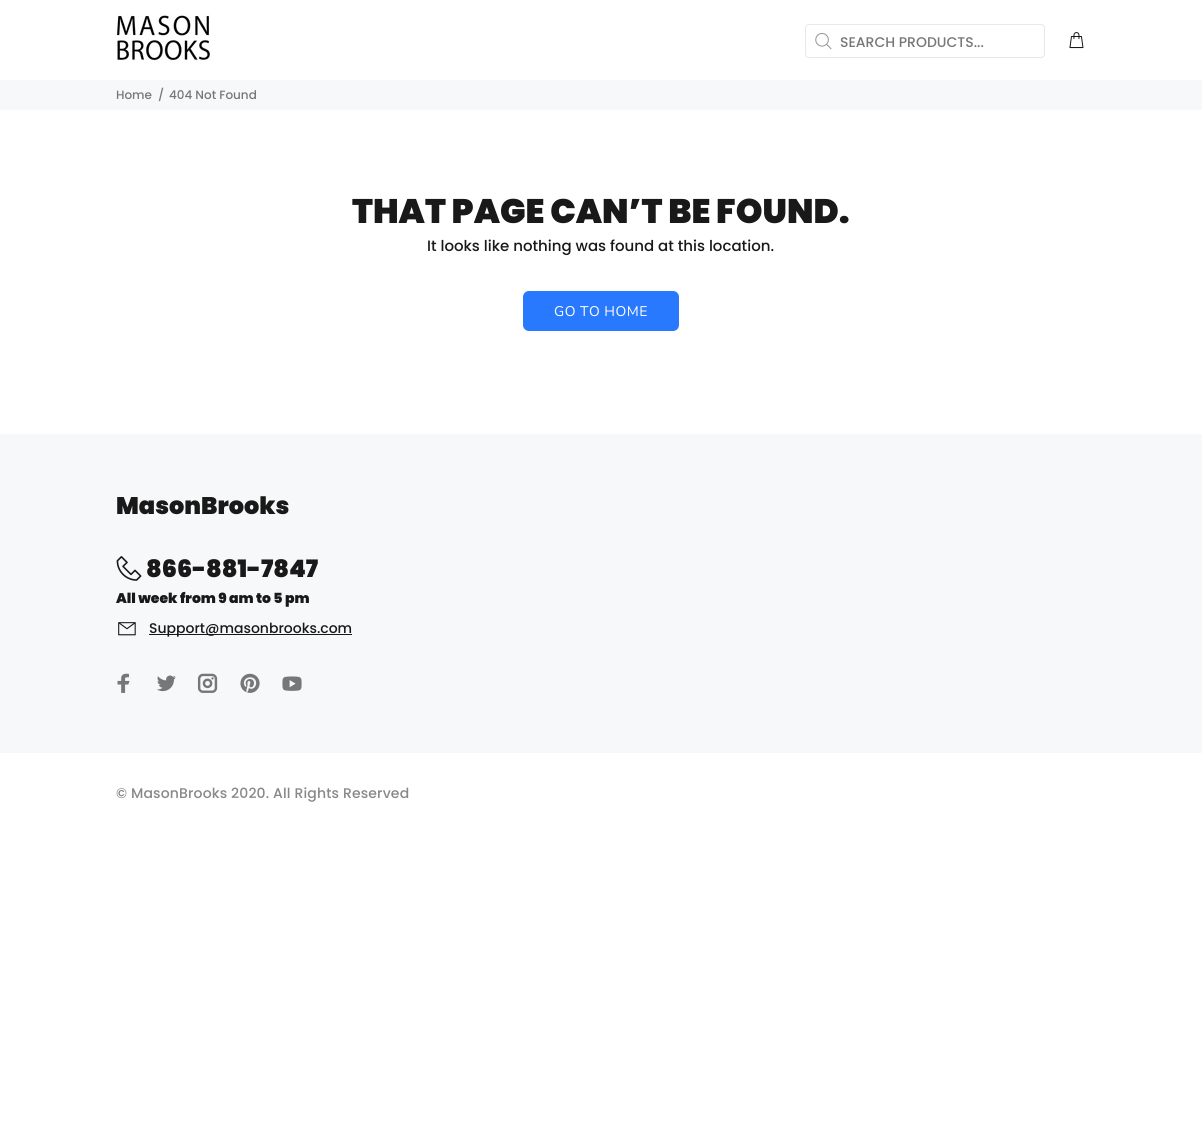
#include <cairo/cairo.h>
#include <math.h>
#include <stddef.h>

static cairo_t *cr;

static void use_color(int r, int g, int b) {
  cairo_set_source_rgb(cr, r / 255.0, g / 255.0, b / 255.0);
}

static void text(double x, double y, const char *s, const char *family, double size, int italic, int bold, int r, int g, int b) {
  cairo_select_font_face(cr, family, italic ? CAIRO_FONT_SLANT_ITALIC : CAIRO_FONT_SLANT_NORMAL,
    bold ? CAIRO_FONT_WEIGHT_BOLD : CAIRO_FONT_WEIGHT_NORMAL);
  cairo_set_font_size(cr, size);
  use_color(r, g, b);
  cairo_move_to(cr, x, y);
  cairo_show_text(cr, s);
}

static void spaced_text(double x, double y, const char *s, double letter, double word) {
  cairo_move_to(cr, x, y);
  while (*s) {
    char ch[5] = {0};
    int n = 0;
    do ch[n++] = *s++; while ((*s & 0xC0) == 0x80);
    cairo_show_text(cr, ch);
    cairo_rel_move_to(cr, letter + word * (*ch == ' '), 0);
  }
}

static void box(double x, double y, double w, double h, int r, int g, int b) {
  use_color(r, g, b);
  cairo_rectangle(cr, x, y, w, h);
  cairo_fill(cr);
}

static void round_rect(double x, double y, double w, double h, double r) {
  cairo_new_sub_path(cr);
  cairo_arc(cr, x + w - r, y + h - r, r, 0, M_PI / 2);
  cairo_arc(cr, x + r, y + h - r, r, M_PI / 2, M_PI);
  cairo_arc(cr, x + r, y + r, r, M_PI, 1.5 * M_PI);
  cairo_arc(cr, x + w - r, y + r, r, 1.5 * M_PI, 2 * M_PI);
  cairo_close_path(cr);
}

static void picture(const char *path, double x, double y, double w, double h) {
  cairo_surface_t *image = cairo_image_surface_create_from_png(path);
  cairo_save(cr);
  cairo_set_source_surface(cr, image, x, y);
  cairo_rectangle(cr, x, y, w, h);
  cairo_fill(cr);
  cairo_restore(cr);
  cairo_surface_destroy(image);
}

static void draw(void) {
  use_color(255, 255, 255);
  cairo_paint(cr);
  picture("img_01.png", 116, 13, 95, 48);
  round_rect(805.5, 24.5, 239, 33, 3.5);
  use_color(233, 231, 231);
  cairo_set_line_width(cr, 1);
  cairo_stroke(cr);
  picture("img_02.png", 815, 33, 17, 17);
  picture("img_03.png", 1069, 32, 15, 17);
  box(0, 80, 1202, 30, 247, 248, 250);
  use_color(40, 121, 254);
  round_rect(523, 291, 156, 40, 6);
  cairo_fill(cr);
  box(0, 434, 1202, 319, 247, 248, 250);
  picture("img_04.png", 116, 556, 26, 25);
  picture("img_05.png", 118, 622, 18, 14);
  box(149, 634, 203, 1, 25, 25, 25);
  picture("img_06.png", 117, 673, 13, 20);
  picture("img_07.png", 157, 675, 19, 17);
  picture("img_08.png", 197, 673, 21, 20);
  picture("img_09.png", 240, 673, 20, 20);
  picture("img_10.png", 282, 676, 20, 15);
  text(840, 47, "SEARCH PRODUCTS...", "Poppins Medium", 14, 0, 0, 119, 119, 119);
  text(116, 99, "Home", "Poppins Medium", 12, 0, 0, 119, 119, 119);
  text(158, 99, "/", "Poppins Medium", 12, 0, 0, 119, 119, 119);
  text(169, 99, "404 Not Found", "Poppins Medium", 12, 0, 0, 119, 119, 119);
  text(352, 223, "THAT PAGE CAN’T BE FOUND.", "Poppins Black", 34, 0, 0, 25, 25, 25);
  text(427, 251, "It looks like nothing was found at this location.", "Poppins Medium", 15, 0, 0, 25, 25, 25);
  cairo_select_font_face(cr, "Nunito", CAIRO_FONT_SLANT_NORMAL, CAIRO_FONT_WEIGHT_NORMAL);
  cairo_set_font_size(cr, 14);
  use_color(255, 255, 255);
  spaced_text(554, 316, "GO TO HOME", 0.5, 0);
  text(116, 514, "MasonBrooks", "Poppins Black", 24, 0, 0, 25, 25, 25);
  text(146, 577, "866-881-7847", "Poppins Black", 24, 0, 0, 25, 25, 25);
  text(116, 603, "All week from 9 am to 5 pm", "Poppins Black", 14, 0, 0, 25, 25, 25);
  text(149, 633, "Support@masonbrooks.com", "Poppins Medium", 14, 0, 0, 25, 25, 25);
  use_color(136, 136, 136);
  spaced_text(116, 798, "© MasonBrooks 2020. All Rights Reserved", 0.15, 0);
}

int main(void) {
  cairo_surface_t *surface = cairo_image_surface_create(CAIRO_FORMAT_RGB24, 1202, 1137);
  cr = cairo_create(surface);
  cairo_font_options_t *options = cairo_font_options_create();
  cairo_font_options_set_hint_metrics(options, CAIRO_HINT_METRICS_OFF);
  cairo_font_options_set_hint_style(options, CAIRO_HINT_STYLE_NONE);
  cairo_set_font_options(cr, options);
  cairo_set_miter_limit(cr, 4);
  draw();
  cairo_surface_write_to_png(surface, "out.png");
  cairo_font_options_destroy(options);
  cairo_destroy(cr);
  cairo_surface_destroy(surface);
  return 0;
}
